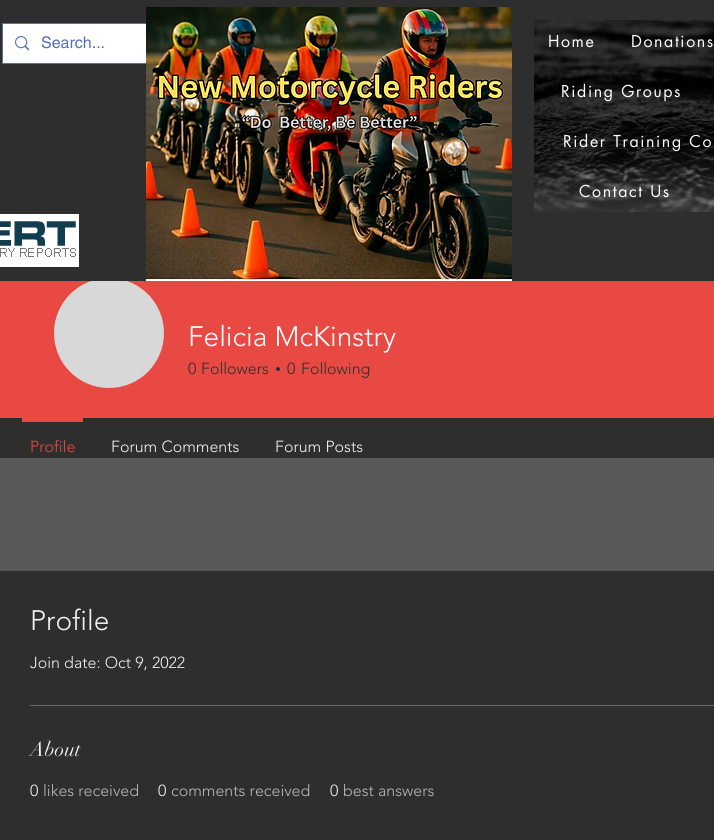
#include <cairo/cairo.h>
#include <math.h>
#include <stddef.h>

static cairo_t *cr;

static void use_color(int r, int g, int b) {
  cairo_set_source_rgb(cr, r / 255.0, g / 255.0, b / 255.0);
}

static void text(double x, double y, const char *s, const char *family, double size, int italic, int bold, int r, int g, int b) {
  cairo_select_font_face(cr, family, italic ? CAIRO_FONT_SLANT_ITALIC : CAIRO_FONT_SLANT_NORMAL,
    bold ? CAIRO_FONT_WEIGHT_BOLD : CAIRO_FONT_WEIGHT_NORMAL);
  cairo_set_font_size(cr, size);
  use_color(r, g, b);
  cairo_move_to(cr, x, y);
  cairo_show_text(cr, s);
}

static void spaced_text(double x, double y, const char *s, double letter, double word) {
  cairo_move_to(cr, x, y);
  while (*s) {
    char ch[5] = {0};
    int n = 0;
    do ch[n++] = *s++; while ((*s & 0xC0) == 0x80);
    cairo_show_text(cr, ch);
    cairo_rel_move_to(cr, letter + word * (*ch == ' '), 0);
  }
}

static void box(double x, double y, double w, double h, int r, int g, int b) {
  use_color(r, g, b);
  cairo_rectangle(cr, x, y, w, h);
  cairo_fill(cr);
}

static void picture(const char *path, double x, double y, double w, double h) {
  cairo_surface_t *image = cairo_image_surface_create_from_png(path);
  cairo_save(cr);
  cairo_set_source_surface(cr, image, x, y);
  cairo_rectangle(cr, x, y, w, h);
  cairo_fill(cr);
  cairo_restore(cr);
  cairo_surface_destroy(image);
}

static void draw(void) {
  use_color(89, 88, 88);
  cairo_paint(cr);
  box(0, 281, 714, 137, 232, 74, 67);
  use_color(216, 216, 216);
  cairo_arc(cr, 109, 333, 55, 0, 2 * M_PI);
  cairo_fill(cr);
  box(0, 0, 714, 281, 47, 46, 46);
  cairo_rectangle(cr, 2.5, 23.5, 215, 40);
  use_color(86, 111, 184);
  cairo_set_line_width(cr, 1);
  cairo_stroke(cr);
  box(3, 24, 143, 39, 255, 255, 255);
  picture("img_01.png", 15, 36, 14, 15);
  picture("img_02.png", 146, 7, 366, 274);
  picture("img_03.png", 534, 20, 180, 192);
  picture("img_04.png", 0, 214, 79, 53);
  use_color(47, 46, 46);
  cairo_arc(cr, 278, 369, 2, 0, 2 * M_PI);
  cairo_fill(cr);
  box(0, 418, 714, 40, 47, 46, 46);
  box(22, 418, 61, 4, 232, 74, 67);
  box(0, 571, 714, 259, 47, 46, 46);
  box(30, 705, 684, 1, 106, 105, 105);
  box(0, 830, 714, 10, 47, 46, 46);
  text(41, 48, "Search...", "helvetica", 16, 0, 0, 86, 111, 184);
  cairo_select_font_face(cr, "futura", CAIRO_FONT_SLANT_NORMAL, CAIRO_FONT_WEIGHT_NORMAL);
  use_color(255, 255, 255);
  spaced_text(548, 47, "Home", 1.6, 0);
  spaced_text(631, 47, "Donations", 1.6, 0);
  spaced_text(561, 97, "Riding Groups", 1.6, 0);
  spaced_text(563, 147, "Rider Training Co", 1.6, 0);
  spaced_text(579, 197, "Contact Us", 1.6, 0);
  text(188, 346, "Felicia McKinstry", "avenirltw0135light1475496 Light", 28, 0, 0, 255, 255, 255);
  text(188, 374, "0", "avenirltw0135light1475496 Light", 16, 0, 0, 47, 46, 46);
  text(201, 374, "Followers", "avenirltw0135light1475496 Light", 16, 0, 0, 47, 46, 46);
  text(287, 374, "0", "avenirltw0135light1475496 Light", 16, 0, 0, 47, 46, 46);
  text(301, 374, "Following", "avenirltw0135light1475496 Light", 16, 0, 0, 47, 46, 46);
  text(30, 452, "Profile", "avenirltw0135light1475496 Light", 16, 0, 0, 232, 74, 67);
  text(111, 452, "Forum Comments", "avenirltw0135light1475496 Light", 16, 0, 0, 242, 242, 242);
  text(275, 452, "Forum Posts", "avenirltw0135light1475496 Light", 16, 0, 0, 242, 242, 242);
  text(30, 630, "Profile", "avenirltw0135light1475496 Light", 28, 0, 0, 242, 242, 242);
  text(30, 668, "Join date: Oct 9, 2022", "avenirltw0135light1475496 Light", 16, 0, 0, 242, 242, 242);
  text(30, 756, "About", "didot", 20, 0, 0, 242, 242, 242);
  text(30, 796, "0", "avenirltw0135light1475496 Light", 16, 0, 0, 242, 242, 242);
  text(43, 796, "likes received", "avenirltw0135light1475496 Light", 16, 0, 0, 184, 183, 183);
  text(158, 796, "0", "avenirltw0135light1475496 Light", 16, 0, 0, 242, 242, 242);
  text(171, 796, "comments received", "avenirltw0135light1475496 Light", 16, 0, 0, 184, 183, 183);
  text(330, 796, "0", "avenirltw0135light1475496 Light", 16, 0, 0, 242, 242, 242);
  text(343, 796, "best answers", "avenirltw0135light1475496 Light", 16, 0, 0, 184, 183, 183);
}

int main(void) {
  cairo_surface_t *surface = cairo_image_surface_create(CAIRO_FORMAT_RGB24, 714, 840);
  cr = cairo_create(surface);
  cairo_font_options_t *options = cairo_font_options_create();
  cairo_font_options_set_hint_metrics(options, CAIRO_HINT_METRICS_OFF);
  cairo_font_options_set_hint_style(options, CAIRO_HINT_STYLE_NONE);
  cairo_set_font_options(cr, options);
  cairo_set_miter_limit(cr, 4);
  draw();
  cairo_surface_write_to_png(surface, "out.png");
  cairo_font_options_destroy(options);
  cairo_destroy(cr);
  cairo_surface_destroy(surface);
  return 0;
}
